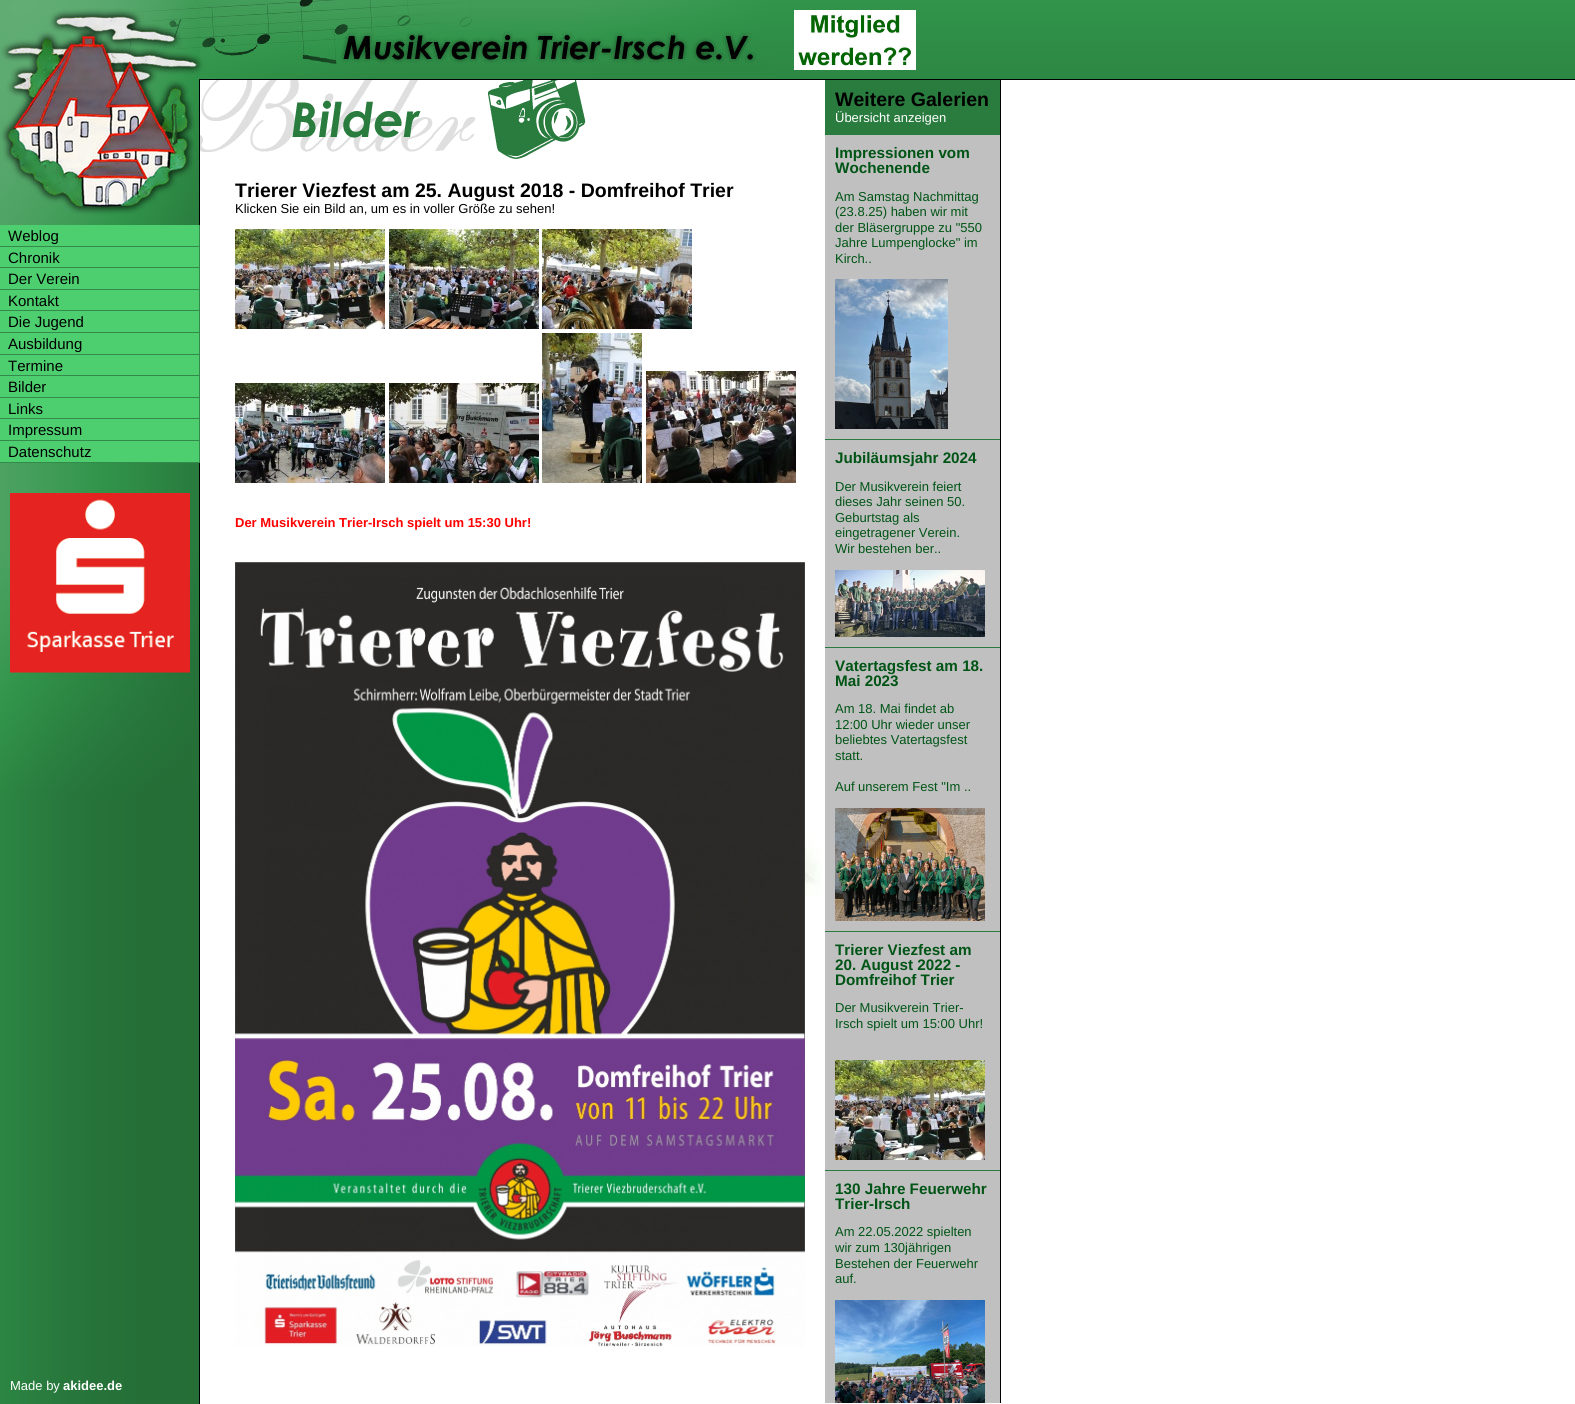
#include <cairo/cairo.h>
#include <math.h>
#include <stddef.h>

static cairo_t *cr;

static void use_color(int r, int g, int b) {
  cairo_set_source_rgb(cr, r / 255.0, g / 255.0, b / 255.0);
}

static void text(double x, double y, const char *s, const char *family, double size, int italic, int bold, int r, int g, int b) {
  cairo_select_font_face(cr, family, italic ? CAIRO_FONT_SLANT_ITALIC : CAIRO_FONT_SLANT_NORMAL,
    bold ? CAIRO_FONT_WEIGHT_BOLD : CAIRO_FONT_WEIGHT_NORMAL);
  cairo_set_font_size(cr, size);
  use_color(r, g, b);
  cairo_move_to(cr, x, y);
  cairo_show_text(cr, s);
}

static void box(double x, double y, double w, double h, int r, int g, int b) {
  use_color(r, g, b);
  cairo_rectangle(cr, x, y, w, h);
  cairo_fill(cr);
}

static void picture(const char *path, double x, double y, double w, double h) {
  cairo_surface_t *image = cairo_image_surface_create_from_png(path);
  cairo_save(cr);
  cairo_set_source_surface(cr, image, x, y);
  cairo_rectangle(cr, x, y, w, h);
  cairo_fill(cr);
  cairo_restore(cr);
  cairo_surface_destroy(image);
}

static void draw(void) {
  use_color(255, 255, 255);
  cairo_paint(cr);
  picture("img_01.png", 0, 799, 200, 605);
  picture("img_02.png", 0, 0, 200, 799);
  picture("img_03.png", 200, 0, 1375, 80);
  picture("img_04.png", 200, 0, 574, 79);
  picture("img_05.png", 794, 10, 122, 60);
  box(0, 225, 199, 21, 78, 207, 111);
  box(199, 225, 1, 238, 52, 138, 74);
  box(0, 246, 200, 1, 52, 138, 74);
  box(0, 247, 199, 20, 78, 207, 111);
  box(0, 267, 200, 1, 52, 138, 74);
  box(0, 268, 199, 21, 78, 207, 111);
  box(0, 289, 200, 1, 52, 138, 74);
  box(0, 290, 199, 20, 78, 207, 111);
  box(0, 310, 200, 1, 52, 138, 74);
  box(0, 311, 199, 21, 78, 207, 111);
  box(0, 332, 200, 1, 52, 138, 74);
  box(0, 333, 199, 21, 78, 207, 111);
  box(0, 354, 200, 1, 52, 138, 74);
  box(0, 355, 199, 20, 78, 207, 111);
  box(0, 375, 200, 1, 52, 138, 74);
  box(0, 376, 199, 21, 78, 207, 111);
  box(0, 397, 200, 1, 52, 138, 74);
  box(0, 398, 199, 20, 78, 207, 111);
  box(0, 418, 200, 1, 52, 138, 74);
  box(0, 419, 199, 21, 78, 207, 111);
  box(0, 440, 200, 1, 52, 138, 74);
  box(0, 441, 199, 21, 78, 207, 111);
  box(0, 462, 200, 1, 52, 138, 74);
  picture("img_06.png", 10, 493, 180, 180);
  box(1000, 80, 1, 1323, 0, 0, 0);
  picture("img_07.png", 200, 80, 386, 79);
  picture("img_08.png", 235, 229, 150, 100);
  picture("img_09.png", 389, 229, 150, 100);
  picture("img_10.png", 542, 229, 150, 100);
  picture("img_11.png", 235, 383, 150, 100);
  picture("img_12.png", 389, 383, 150, 100);
  picture("img_13.png", 542, 333, 100, 150);
  picture("img_14.png", 646, 371, 150, 112);
  picture("img_15.png", 235, 562, 570, 785);
  box(825, 80, 175, 1091, 41, 123, 62);
  box(825, 135, 175, 304, 192, 192, 192);
  picture("img_16.png", 835, 279, 113, 150);
  box(825, 440, 175, 207, 192, 192, 192);
  picture("img_17.png", 835, 570, 150, 67);
  box(825, 648, 175, 283, 192, 192, 192);
  picture("img_18.png", 835, 808, 150, 113);
  box(825, 932, 175, 238, 192, 192, 192);
  picture("img_08.png", 835, 1060, 150, 100);
  box(825, 1171, 175, 232, 192, 192, 192);
  picture("img_19.png", 835, 1300, 150, 103);
  picture("img_20.png", 805, 600, 17, 296);
  text(8, 241, "Weblog", "Liberation Sans", 15, 0, 0, 0, 0, 0);
  text(8, 263, "Chronik", "Liberation Sans", 15, 0, 0, 0, 0, 0);
  text(8, 284, "Der Verein", "Liberation Sans", 15, 0, 0, 0, 0, 0);
  text(8, 306, "Kontakt", "Liberation Sans", 15, 0, 0, 0, 0, 0);
  text(8, 327, "Die Jugend", "Liberation Sans", 15, 0, 0, 0, 0, 0);
  text(8, 349, "Ausbildung", "Liberation Sans", 15, 0, 0, 0, 0, 0);
  text(8, 371, "Termine", "Liberation Sans", 15, 0, 0, 0, 0, 0);
  text(8, 392, "Bilder", "Liberation Sans", 15, 0, 0, 0, 0, 0);
  text(8, 414, "Links", "Liberation Sans", 15, 0, 0, 0, 0, 0);
  text(8, 435, "Impressum", "Liberation Sans", 15, 0, 0, 0, 0, 0);
  text(8, 457, "Datenschutz", "Liberation Sans", 15, 0, 0, 0, 0, 0);
  text(235, 197, "Trierer Viezfest am 25. August 2018 - Domfreihof Trier", "Liberation Sans", 19.5, 0, 1, 0, 0, 0);
  text(235, 213, "Klicken Sie ein Bild an, um es in voller Größe zu sehen!", "Liberation Sans", 13, 0, 0, 0, 0, 0);
  text(235, 527, "Der Musikverein Trier-Irsch spielt um 15:30 Uhr!", "Liberation Sans", 13, 0, 1, 255, 0, 0);
  text(835, 106, "Weitere Galerien", "Liberation Sans", 19.5, 0, 1, 0, 0, 0);
  text(835, 122, "Übersicht anzeigen", "Liberation Sans", 13, 0, 0, 255, 255, 255);
  text(835, 158, "Impressionen vom", "Liberation Sans", 15.25, 0, 1, 0, 84, 21);
  text(835, 173, "Wochenende", "Liberation Sans", 15.25, 0, 1, 0, 84, 21);
  text(835, 201, "Am Samstag Nachmittag", "Liberation Sans", 13, 0, 0, 0, 84, 21);
  text(835, 216, "(23.8.25) haben wir mit", "Liberation Sans", 13, 0, 0, 0, 84, 21);
  text(835, 232, "der Bläsergruppe zu \"550", "Liberation Sans", 13, 0, 0, 0, 84, 21);
  text(835, 247, "Jahre Lumpenglocke\" im", "Liberation Sans", 13, 0, 0, 0, 84, 21);
  text(835, 263, "Kirch..", "Liberation Sans", 13, 0, 0, 0, 84, 21);
  text(835, 463, "Jubiläumsjahr 2024", "Liberation Sans", 15.25, 0, 1, 0, 84, 21);
  text(835, 491, "Der Musikverein feiert", "Liberation Sans", 13, 0, 0, 0, 84, 21);
  text(835, 506, "dieses Jahr seinen 50.", "Liberation Sans", 13, 0, 0, 0, 84, 21);
  text(835, 522, "Geburtstag als", "Liberation Sans", 13, 0, 0, 0, 84, 21);
  text(835, 537, "eingetragener Verein.", "Liberation Sans", 13, 0, 0, 0, 84, 21);
  text(835, 553, "Wir bestehen ber..", "Liberation Sans", 13, 0, 0, 0, 84, 21);
  text(835, 671, "Vatertagsfest am 18.", "Liberation Sans", 15.25, 0, 1, 0, 84, 21);
  text(835, 686, "Mai 2023", "Liberation Sans", 15.25, 0, 1, 0, 84, 21);
  text(835, 713, "Am 18. Mai findet ab", "Liberation Sans", 13, 0, 0, 0, 84, 21);
  text(835, 729, "12:00 Uhr wieder unser", "Liberation Sans", 13, 0, 0, 0, 84, 21);
  text(835, 744, "beliebtes Vatertagsfest", "Liberation Sans", 13, 0, 0, 0, 84, 21);
  text(835, 760, "statt.", "Liberation Sans", 13, 0, 0, 0, 84, 21);
  text(835, 791, "Auf unserem Fest \"Im ..", "Liberation Sans", 13, 0, 0, 0, 84, 21);
  text(835, 955, "Trierer Viezfest am", "Liberation Sans", 15.25, 0, 1, 0, 84, 21);
  text(835, 970, "20. August 2022 -", "Liberation Sans", 15.25, 0, 1, 0, 84, 21);
  text(835, 985, "Domfreihof Trier", "Liberation Sans", 15.25, 0, 1, 0, 84, 21);
  text(835, 1012, "Der Musikverein Trier-", "Liberation Sans", 13, 0, 0, 0, 84, 21);
  text(835, 1028, "Irsch spielt um 15:00 Uhr!", "Liberation Sans", 13, 0, 0, 0, 84, 21);
  text(835, 1194, "130 Jahre Feuerwehr", "Liberation Sans", 15.25, 0, 1, 0, 84, 21);
  text(835, 1209, "Trier-Irsch", "Liberation Sans", 15.25, 0, 1, 0, 84, 21);
  text(835, 1236, "Am 22.05.2022 spielten", "Liberation Sans", 13, 0, 0, 0, 84, 21);
  text(835, 1252, "wir zum 130jährigen", "Liberation Sans", 13, 0, 0, 0, 84, 21);
  text(835, 1268, "Bestehen der Feuerwehr", "Liberation Sans", 13, 0, 0, 0, 84, 21);
  text(835, 1283, "auf.", "Liberation Sans", 13, 0, 0, 0, 84, 21);
  text(10, 1390, "Made by", "Liberation Sans", 13, 0, 0, 255, 255, 255);
  text(63, 1390, "akidee.de", "Liberation Sans", 13, 0, 1, 255, 255, 255);
}

int main(void) {
  cairo_surface_t *surface = cairo_image_surface_create(CAIRO_FORMAT_RGB24, 1575, 1404);
  cr = cairo_create(surface);
  cairo_font_options_t *options = cairo_font_options_create();
  cairo_font_options_set_hint_metrics(options, CAIRO_HINT_METRICS_OFF);
  cairo_font_options_set_hint_style(options, CAIRO_HINT_STYLE_NONE);
  cairo_set_font_options(cr, options);
  cairo_set_miter_limit(cr, 4);
  draw();
  cairo_surface_write_to_png(surface, "out.png");
  cairo_font_options_destroy(options);
  cairo_destroy(cr);
  cairo_surface_destroy(surface);
  return 0;
}
